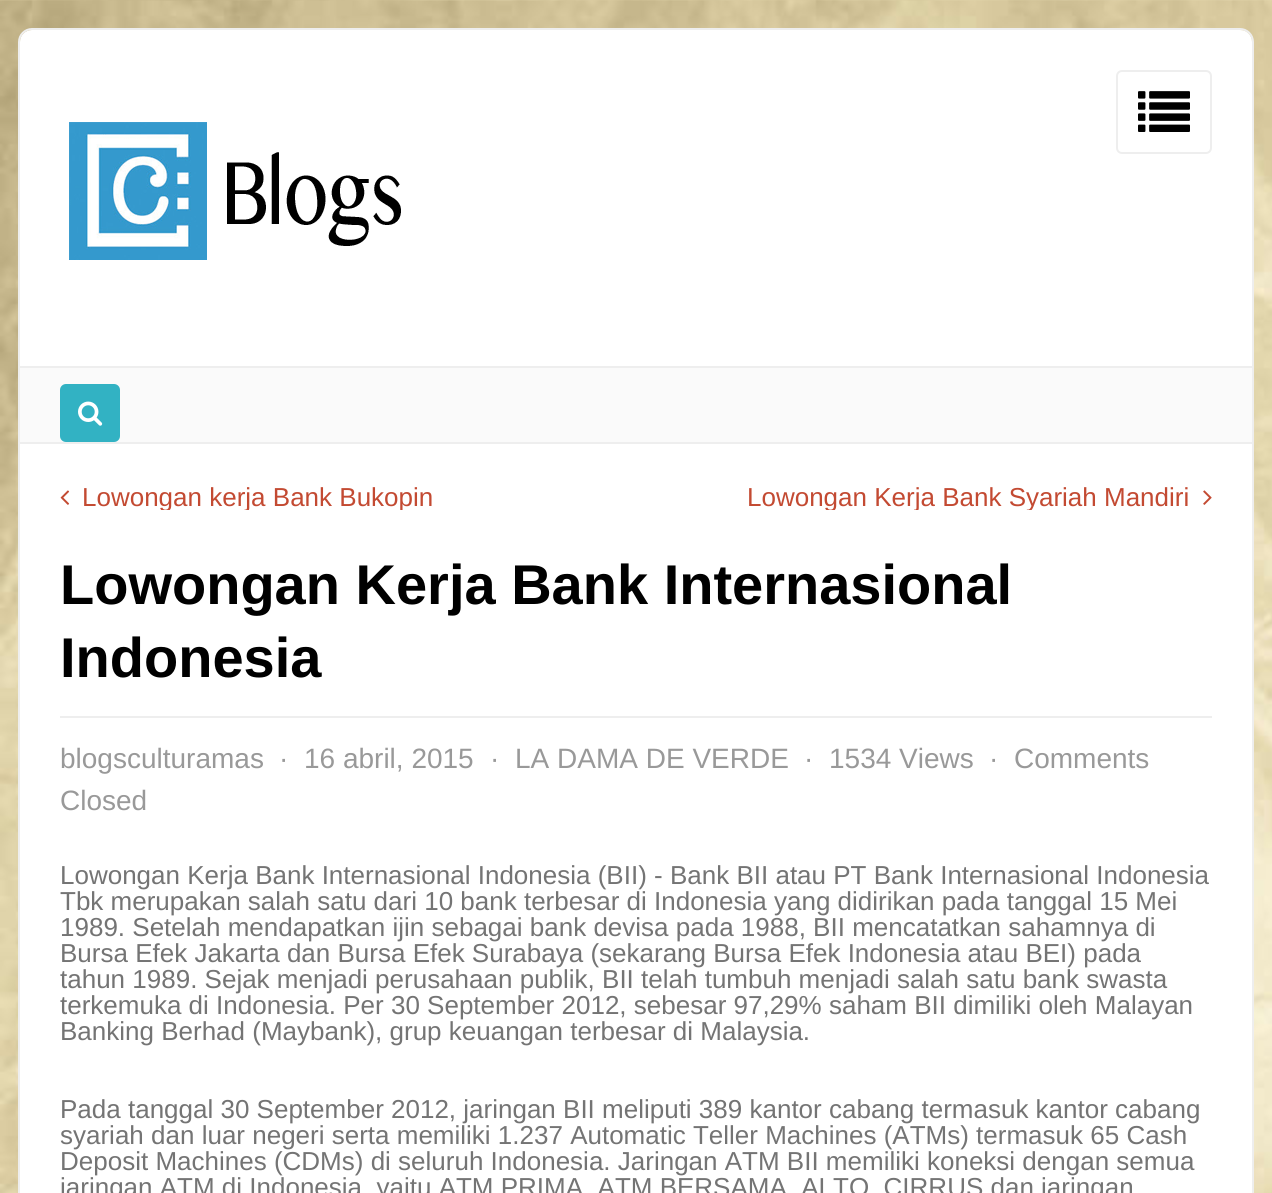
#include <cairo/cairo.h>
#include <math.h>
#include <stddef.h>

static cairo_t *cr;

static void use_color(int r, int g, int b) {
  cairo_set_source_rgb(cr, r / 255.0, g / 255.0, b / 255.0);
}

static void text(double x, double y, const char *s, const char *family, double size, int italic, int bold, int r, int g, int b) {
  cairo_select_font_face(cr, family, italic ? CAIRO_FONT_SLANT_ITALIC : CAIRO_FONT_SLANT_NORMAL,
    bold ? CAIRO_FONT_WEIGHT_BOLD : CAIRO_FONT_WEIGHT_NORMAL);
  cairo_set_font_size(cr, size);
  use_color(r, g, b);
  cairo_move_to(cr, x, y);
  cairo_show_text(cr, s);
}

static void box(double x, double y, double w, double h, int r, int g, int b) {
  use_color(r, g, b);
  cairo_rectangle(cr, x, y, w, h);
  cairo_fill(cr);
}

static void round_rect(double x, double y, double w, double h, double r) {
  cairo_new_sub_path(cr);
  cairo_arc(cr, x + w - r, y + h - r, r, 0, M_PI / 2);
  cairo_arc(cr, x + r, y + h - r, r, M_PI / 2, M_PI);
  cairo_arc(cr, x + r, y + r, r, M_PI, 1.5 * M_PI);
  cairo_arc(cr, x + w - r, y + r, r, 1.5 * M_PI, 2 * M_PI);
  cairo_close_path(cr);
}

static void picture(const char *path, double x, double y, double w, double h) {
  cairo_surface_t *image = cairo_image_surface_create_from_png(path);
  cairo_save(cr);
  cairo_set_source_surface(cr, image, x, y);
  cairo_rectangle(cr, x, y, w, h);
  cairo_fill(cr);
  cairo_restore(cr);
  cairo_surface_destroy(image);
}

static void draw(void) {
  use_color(255, 255, 255);
  cairo_paint(cr);
  picture("img_01.png", 0, 0, 1272, 1193);
  round_rect(19, 29, 1234, 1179, 13);
  use_color(238, 238, 238);
  cairo_stroke(cr);
  use_color(255, 255, 255);
  round_rect(20, 30, 1232, 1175, 12);
  cairo_fill(cr);
  round_rect(1117, 71, 94, 82, 5);
  use_color(238, 238, 238);
  cairo_stroke(cr);
  picture("img_02.png", 1138, 91, 52, 41);
  picture("img_03.png", 69, 122, 332, 138);
  box(20, 368, 1232, 74, 250, 250, 250);
  box(20, 366, 1232, 2, 238, 238, 238);
  box(20, 442, 1232, 2, 238, 238, 238);
  use_color(50, 178, 195);
  round_rect(60, 384, 60, 58, 6);
  cairo_fill(cr);
  picture("img_04.png", 78, 401, 25, 25);
  picture("img_05.png", 60, 490, 10, 15);
  picture("img_06.png", 1203, 490, 9, 15);
  box(60, 716, 1152, 2, 238, 238, 238);
  cairo_save(cr);
  cairo_rectangle(cr, 60, 484, 1152, 26);
  cairo_clip(cr);
  text(82, 506, "Lowongan kerja Bank Bukopin", "Liberation Sans", 26, 0, 0, 195, 74, 50);
  text(747, 506, "Lowongan Kerja Bank Syariah Mandiri", "Liberation Sans", 26, 0, 0, 195, 74, 50);
  cairo_restore(cr);
  text(60, 604, "Lowongan Kerja Bank Internasional", "Liberation Sans", 56, 0, 1, 0, 0, 0);
  text(60, 677, "Indonesia", "Liberation Sans", 56, 0, 1, 0, 0, 0);
  text(60, 768, "blogsculturamas", "Liberation Sans", 28, 0, 0, 153, 153, 153);
  text(279, 768, "·", "Liberation Sans", 28, 0, 0, 153, 153, 153);
  text(304, 768, "16 abril, 2015", "Liberation Sans", 28, 0, 0, 153, 153, 153);
  text(490, 768, "·", "Liberation Sans", 28, 0, 0, 153, 153, 153);
  text(515, 768, "LA DAMA DE VERDE", "Liberation Sans", 28, 0, 0, 153, 153, 153);
  text(804, 768, "·", "Liberation Sans", 28, 0, 0, 153, 153, 153);
  text(829, 768, "1534 Views", "Liberation Sans", 28, 0, 0, 153, 153, 153);
  text(989, 768, "·", "Liberation Sans", 28, 0, 0, 153, 153, 153);
  text(1014, 768, "Comments", "Liberation Sans", 28, 0, 0, 153, 153, 153);
  text(60, 810, "Closed", "Liberation Sans", 28, 0, 0, 153, 153, 153);
  text(60, 884, "Lowongan Kerja Bank Internasional Indonesia (BII) - Bank BII atau PT Bank Internasional Indonesia", "Liberation Sans", 26, 0, 0, 116, 116, 116);
  text(60, 910, "Tbk merupakan salah satu dari 10 bank terbesar di Indonesia yang didirikan pada tanggal 15 Mei", "Liberation Sans", 26, 0, 0, 116, 116, 116);
  text(60, 936, "1989. Setelah mendapatkan ijin sebagai bank devisa pada 1988, BII mencatatkan sahamnya di", "Liberation Sans", 26, 0, 0, 116, 116, 116);
  text(60, 962, "Bursa Efek Jakarta dan Bursa Efek Surabaya (sekarang Bursa Efek Indonesia atau BEI) pada", "Liberation Sans", 26, 0, 0, 116, 116, 116);
  text(60, 988, "tahun 1989. Sejak menjadi perusahaan publik, BII telah tumbuh menjadi salah satu bank swasta", "Liberation Sans", 26, 0, 0, 116, 116, 116);
  text(60, 1014, "terkemuka di Indonesia. Per 30 September 2012, sebesar 97,29% saham BII dimiliki oleh Malayan", "Liberation Sans", 26, 0, 0, 116, 116, 116);
  text(60, 1040, "Banking Berhad (Maybank), grup keuangan terbesar di Malaysia.", "Liberation Sans", 26, 0, 0, 116, 116, 116);
  text(60, 1118, "Pada tanggal 30 September 2012, jaringan BII meliputi 389 kantor cabang termasuk kantor cabang", "Liberation Sans", 26, 0, 0, 116, 116, 116);
  text(60, 1144, "syariah dan luar negeri serta memiliki 1.237 Automatic Teller Machines (ATMs) termasuk 65 Cash", "Liberation Sans", 26, 0, 0, 116, 116, 116);
  text(60, 1170, "Deposit Machines (CDMs) di seluruh Indonesia. Jaringan ATM BII memiliki koneksi dengan semua", "Liberation Sans", 26, 0, 0, 116, 116, 116);
  text(60, 1196, "jaringan ATM di Indonesia, yaitu ATM PRIMA, ATM BERSAMA, ALTO, CIRRUS dan jaringan", "Liberation Sans", 26, 0, 0, 116, 116, 116);
}

int main(void) {
  cairo_surface_t *surface = cairo_image_surface_create(CAIRO_FORMAT_RGB24, 1272, 1193);
  cr = cairo_create(surface);
  cairo_font_options_t *options = cairo_font_options_create();
  cairo_font_options_set_hint_metrics(options, CAIRO_HINT_METRICS_OFF);
  cairo_font_options_set_hint_style(options, CAIRO_HINT_STYLE_NONE);
  cairo_set_font_options(cr, options);
  cairo_set_miter_limit(cr, 4);
  draw();
  cairo_surface_write_to_png(surface, "out.png");
  cairo_font_options_destroy(options);
  cairo_destroy(cr);
  cairo_surface_destroy(surface);
  return 0;
}
